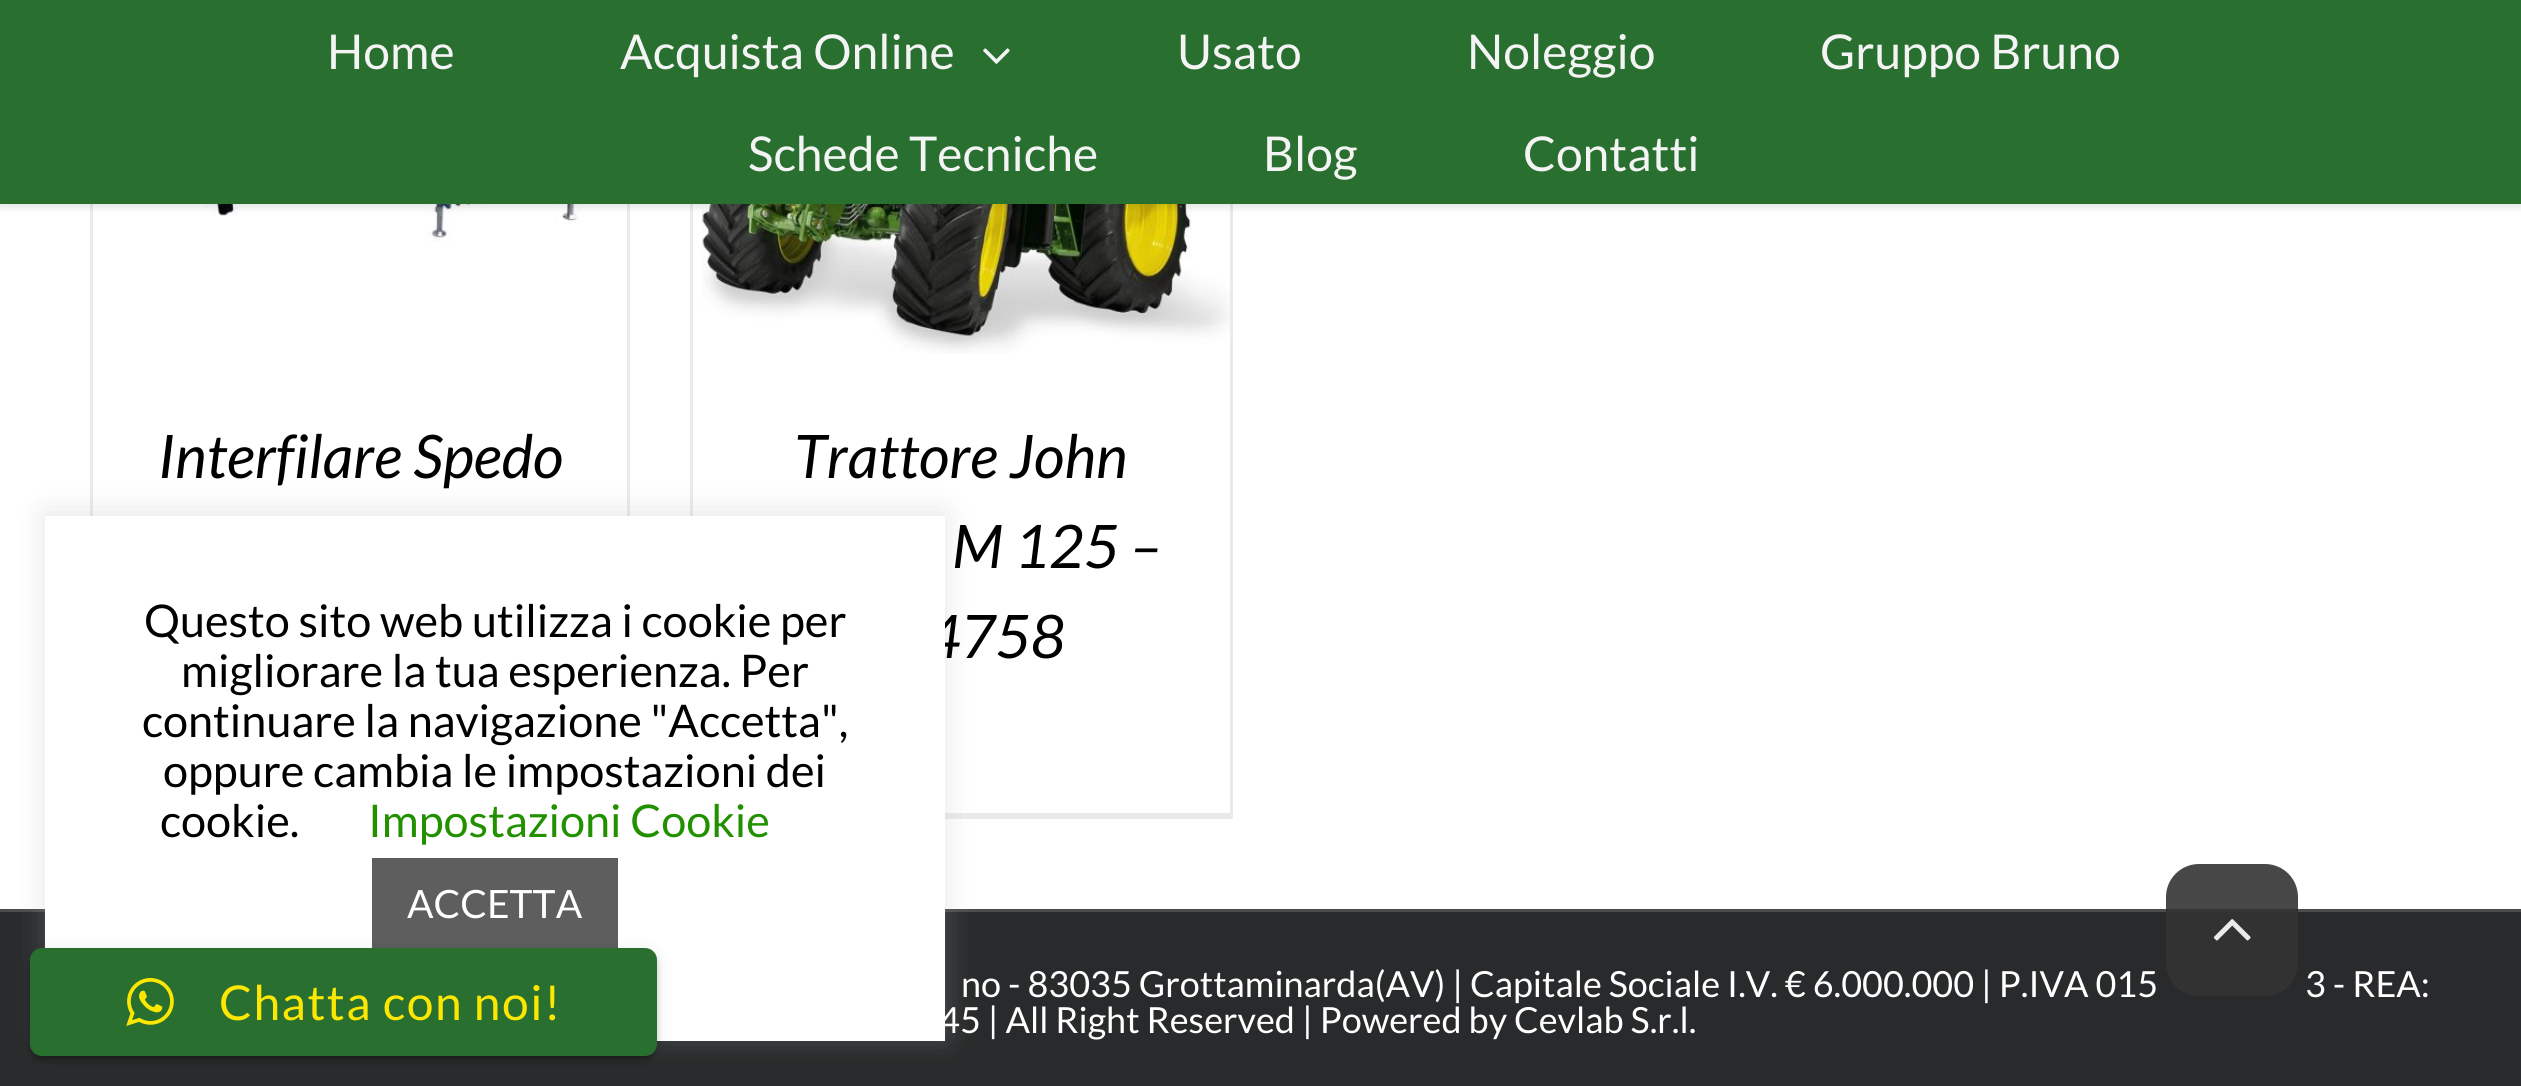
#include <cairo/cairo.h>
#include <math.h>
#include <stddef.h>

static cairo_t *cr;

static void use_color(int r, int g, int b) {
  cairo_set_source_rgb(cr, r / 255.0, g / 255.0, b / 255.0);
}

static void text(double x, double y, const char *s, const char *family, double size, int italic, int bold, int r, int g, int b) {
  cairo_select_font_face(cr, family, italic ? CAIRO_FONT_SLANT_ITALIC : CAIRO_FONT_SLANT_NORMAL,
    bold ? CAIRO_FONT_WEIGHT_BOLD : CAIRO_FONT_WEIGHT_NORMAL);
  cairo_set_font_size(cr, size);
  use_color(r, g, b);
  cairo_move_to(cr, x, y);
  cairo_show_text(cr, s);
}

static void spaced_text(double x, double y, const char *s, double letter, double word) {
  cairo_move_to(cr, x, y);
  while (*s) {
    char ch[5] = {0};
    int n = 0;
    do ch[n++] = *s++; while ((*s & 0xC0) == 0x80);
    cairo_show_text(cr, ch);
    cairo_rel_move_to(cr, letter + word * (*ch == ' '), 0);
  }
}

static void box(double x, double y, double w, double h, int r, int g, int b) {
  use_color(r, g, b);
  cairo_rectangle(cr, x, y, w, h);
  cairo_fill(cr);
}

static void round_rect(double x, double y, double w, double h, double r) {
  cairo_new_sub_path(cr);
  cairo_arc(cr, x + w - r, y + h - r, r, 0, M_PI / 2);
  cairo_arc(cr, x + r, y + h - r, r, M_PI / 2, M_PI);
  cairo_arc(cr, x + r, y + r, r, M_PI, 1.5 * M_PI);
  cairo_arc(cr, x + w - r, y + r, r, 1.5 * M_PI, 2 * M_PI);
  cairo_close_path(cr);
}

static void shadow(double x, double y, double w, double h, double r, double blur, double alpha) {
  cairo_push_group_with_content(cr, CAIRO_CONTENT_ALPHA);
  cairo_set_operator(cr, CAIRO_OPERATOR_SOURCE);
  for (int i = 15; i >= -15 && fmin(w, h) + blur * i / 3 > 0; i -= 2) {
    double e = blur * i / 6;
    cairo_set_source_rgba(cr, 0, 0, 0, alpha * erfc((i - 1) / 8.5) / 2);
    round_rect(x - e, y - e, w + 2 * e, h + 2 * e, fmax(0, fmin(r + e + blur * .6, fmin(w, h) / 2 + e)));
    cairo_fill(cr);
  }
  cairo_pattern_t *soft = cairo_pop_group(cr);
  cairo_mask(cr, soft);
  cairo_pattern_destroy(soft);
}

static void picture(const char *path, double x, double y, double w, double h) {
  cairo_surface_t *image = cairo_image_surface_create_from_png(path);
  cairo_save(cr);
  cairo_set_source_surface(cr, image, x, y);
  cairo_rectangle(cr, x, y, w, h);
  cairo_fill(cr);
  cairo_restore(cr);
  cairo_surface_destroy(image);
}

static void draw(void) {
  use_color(255, 255, 255);
  cairo_paint(cr);
  box(627, 204, 3, 312, 235, 234, 234);
  box(90, 204, 3, 312, 235, 234, 234);
  picture("img_02.png", 119, 204, 465, 38);
  box(1230, 204, 3, 615, 235, 234, 234);
  box(690, 204, 3, 312, 235, 234, 234);
  picture("img_03.png", 701, 204, 529, 150);
  use_color(0, 0, 0);
  shadow(0, 3, 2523, 204, 0, 4.5, 0.12);
  box(0, 0, 2521, 204, 40, 111, 48);
  picture("img_01.png", 983, 48, 27, 16);
  box(945, 813, 288, 6, 235, 234, 234);
  box(0, 912, 2521, 174, 40, 42, 43);
  box(0, 909, 2521, 3, 75, 76, 77);
  use_color(172, 171, 171);
  shadow(45, 513, 900, 525, 0, 15, 0.3);
  cairo_set_source_rgba(cr, 0.2, 0.2, 0.2, 0.9);
  round_rect(2166, 864, 132, 132, 33);
  cairo_fill(cr);
  picture("img_05.png", 2213, 919, 38, 22);
  text(327, 69, "Home", "Lato", 48, 0, 0, 244, 244, 244);
  text(620, 69, "Acquista Online", "Lato", 48, 0, 0, 244, 244, 244);
  text(1177, 69, "Usato", "Lato", 48, 0, 0, 244, 244, 244);
  text(1467, 69, "Noleggio", "Lato", 48, 0, 0, 244, 244, 244);
  text(1820, 69, "Gruppo Bruno", "Lato", 48, 0, 0, 244, 244, 244);
  text(748, 171, "Schede Tecniche", "Lato", 48, 0, 0, 244, 244, 244);
  text(1263, 171, "Blog", "Lato", 48, 0, 0, 244, 244, 244);
  text(1523, 171, "Contatti", "Lato", 48, 0, 0, 244, 244, 244);
  text(158, 478, "Interfilare Spedo", "Lato", 60, 1, 0, 0, 0, 0);
  text(794, 478, "Trattore John", "Lato", 60, 1, 0, 0, 0, 0);
  text(952, 568, "M 125 –", "Lato", 60, 1, 0, 0, 0, 0);
  text(926, 658, "4758", "Lato", 60, 1, 0, 0, 0, 0);
  text(961, 997, "no - 83035 Grottaminarda(AV) | Capitale Sociale I.V. € 6.000.000 | P.IVA 015", "Lato", 36, 0, 0, 255, 255, 255);
  text(2305, 997, "3 - REA:", "Lato", 36, 0, 0, 255, 255, 255);
  text(939, 1033, "45 | All Right Reserved | Powered by Cevlab S.r.l.", "Lato", 36, 0, 0, 255, 255, 255);
  box(45, 516, 900, 525, 255, 255, 255);
  text(144, 637, "Questo sito web utilizza i cookie per", "Lato", 45, 0, 0, 0, 0, 0);
  text(181, 687, "migliorare la tua esperienza. Per", "Lato", 45, 0, 0, 0, 0, 0);
  text(142, 737, "continuare la navigazione \"Accetta\",", "Lato", 45, 0, 0, 0, 0, 0);
  text(163, 787, "oppure cambia le impostazioni dei", "Lato", 45, 0, 0, 0, 0, 0);
  text(160, 837, "cookie.", "Lato", 45, 0, 0, 0, 0, 0);
  text(368, 837, "Impostazioni Cookie", "Lato", 45, 0, 0, 33, 145, 0);
  box(372, 858, 246, 90, 94, 94, 94);
  text(407, 918, "ACCETTA", "Lato", 39, 0, 0, 255, 255, 255);
  use_color(0, 0, 0);
  shadow(36, 963, 615, 96, 6, 1.5, 0.2);
  shadow(30, 951, 627, 108, 12, 7.5, 0.12);
  shadow(30, 954, 627, 108, 12, 3, 0.14);
  use_color(41, 111, 48);
  round_rect(30, 948, 627, 108, 12);
  cairo_fill(cr);
  picture("img_04.png", 126, 978, 48, 48);
  cairo_set_font_size(cr, 48);
  use_color(252, 231, 2);
  spaced_text(219, 1020, "Chatta con noi!", 1.5, 0);
}

int main(void) {
  cairo_surface_t *surface = cairo_image_surface_create(CAIRO_FORMAT_RGB24, 2521, 1086);
  cr = cairo_create(surface);
  cairo_font_options_t *options = cairo_font_options_create();
  cairo_font_options_set_hint_metrics(options, CAIRO_HINT_METRICS_OFF);
  cairo_font_options_set_hint_style(options, CAIRO_HINT_STYLE_NONE);
  cairo_set_font_options(cr, options);
  cairo_set_miter_limit(cr, 4);
  draw();
  cairo_surface_write_to_png(surface, "out.png");
  cairo_font_options_destroy(options);
  cairo_destroy(cr);
  cairo_surface_destroy(surface);
  return 0;
}
